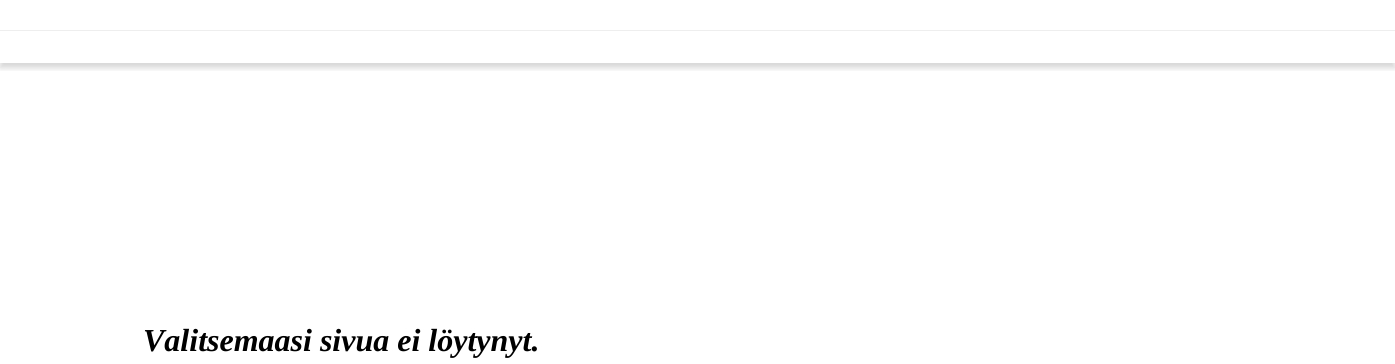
#include <cairo/cairo.h>
#include <math.h>
#include <stddef.h>

static cairo_t *cr;

static void use_color(int r, int g, int b) {
  cairo_set_source_rgb(cr, r / 255.0, g / 255.0, b / 255.0);
}

static void text(double x, double y, const char *s, const char *family, double size, int italic, int bold, int r, int g, int b) {
  cairo_select_font_face(cr, family, italic ? CAIRO_FONT_SLANT_ITALIC : CAIRO_FONT_SLANT_NORMAL,
    bold ? CAIRO_FONT_WEIGHT_BOLD : CAIRO_FONT_WEIGHT_NORMAL);
  cairo_set_font_size(cr, size);
  use_color(r, g, b);
  cairo_move_to(cr, x, y);
  cairo_show_text(cr, s);
}

static void box(double x, double y, double w, double h, int r, int g, int b) {
  use_color(r, g, b);
  cairo_rectangle(cr, x, y, w, h);
  cairo_fill(cr);
}

static void round_rect(double x, double y, double w, double h, double r) {
  cairo_new_sub_path(cr);
  cairo_arc(cr, x + w - r, y + h - r, r, 0, M_PI / 2);
  cairo_arc(cr, x + r, y + h - r, r, M_PI / 2, M_PI);
  cairo_arc(cr, x + r, y + r, r, M_PI, 1.5 * M_PI);
  cairo_arc(cr, x + w - r, y + r, r, 1.5 * M_PI, 2 * M_PI);
  cairo_close_path(cr);
}

static void shadow(double x, double y, double w, double h, double r, double blur, double alpha) {
  cairo_push_group_with_content(cr, CAIRO_CONTENT_ALPHA);
  cairo_set_operator(cr, CAIRO_OPERATOR_SOURCE);
  for (int i = 15; i >= -15 && fmin(w, h) + blur * i / 3 > 0; i -= 2) {
    double e = blur * i / 6;
    cairo_set_source_rgba(cr, 0, 0, 0, alpha * erfc((i - 1) / 8.5) / 2);
    round_rect(x - e, y - e, w + 2 * e, h + 2 * e, fmax(0, fmin(r + e + blur * .6, fmin(w, h) / 2 + e)));
    cairo_fill(cr);
  }
  cairo_pattern_t *soft = cairo_pop_group(cr);
  cairo_mask(cr, soft);
  cairo_pattern_destroy(soft);
}

static void draw(void) {
  use_color(255, 255, 255);
  cairo_paint(cr);
  cairo_save(cr);
  cairo_rectangle(cr, 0, 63, 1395, 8);
  cairo_clip(cr);
  use_color(0, 0, 0);
  shadow(0, 5, 1395, 63, 0, 3, 0.16);
  cairo_restore(cr);
  box(0, 30, 1395, 1, 238, 238, 238);
  text(143, 351, "Valitsemaasi sivua ei löytynyt.", "Liberation Serif", 32, 1, 1, 0, 0, 0);
}

int main(void) {
  cairo_surface_t *surface = cairo_image_surface_create(CAIRO_FORMAT_RGB24, 1395, 364);
  cr = cairo_create(surface);
  cairo_font_options_t *options = cairo_font_options_create();
  cairo_font_options_set_hint_metrics(options, CAIRO_HINT_METRICS_OFF);
  cairo_font_options_set_hint_style(options, CAIRO_HINT_STYLE_NONE);
  cairo_set_font_options(cr, options);
  cairo_set_miter_limit(cr, 4);
  draw();
  cairo_surface_write_to_png(surface, "out.png");
  cairo_font_options_destroy(options);
  cairo_destroy(cr);
  cairo_surface_destroy(surface);
  return 0;
}
